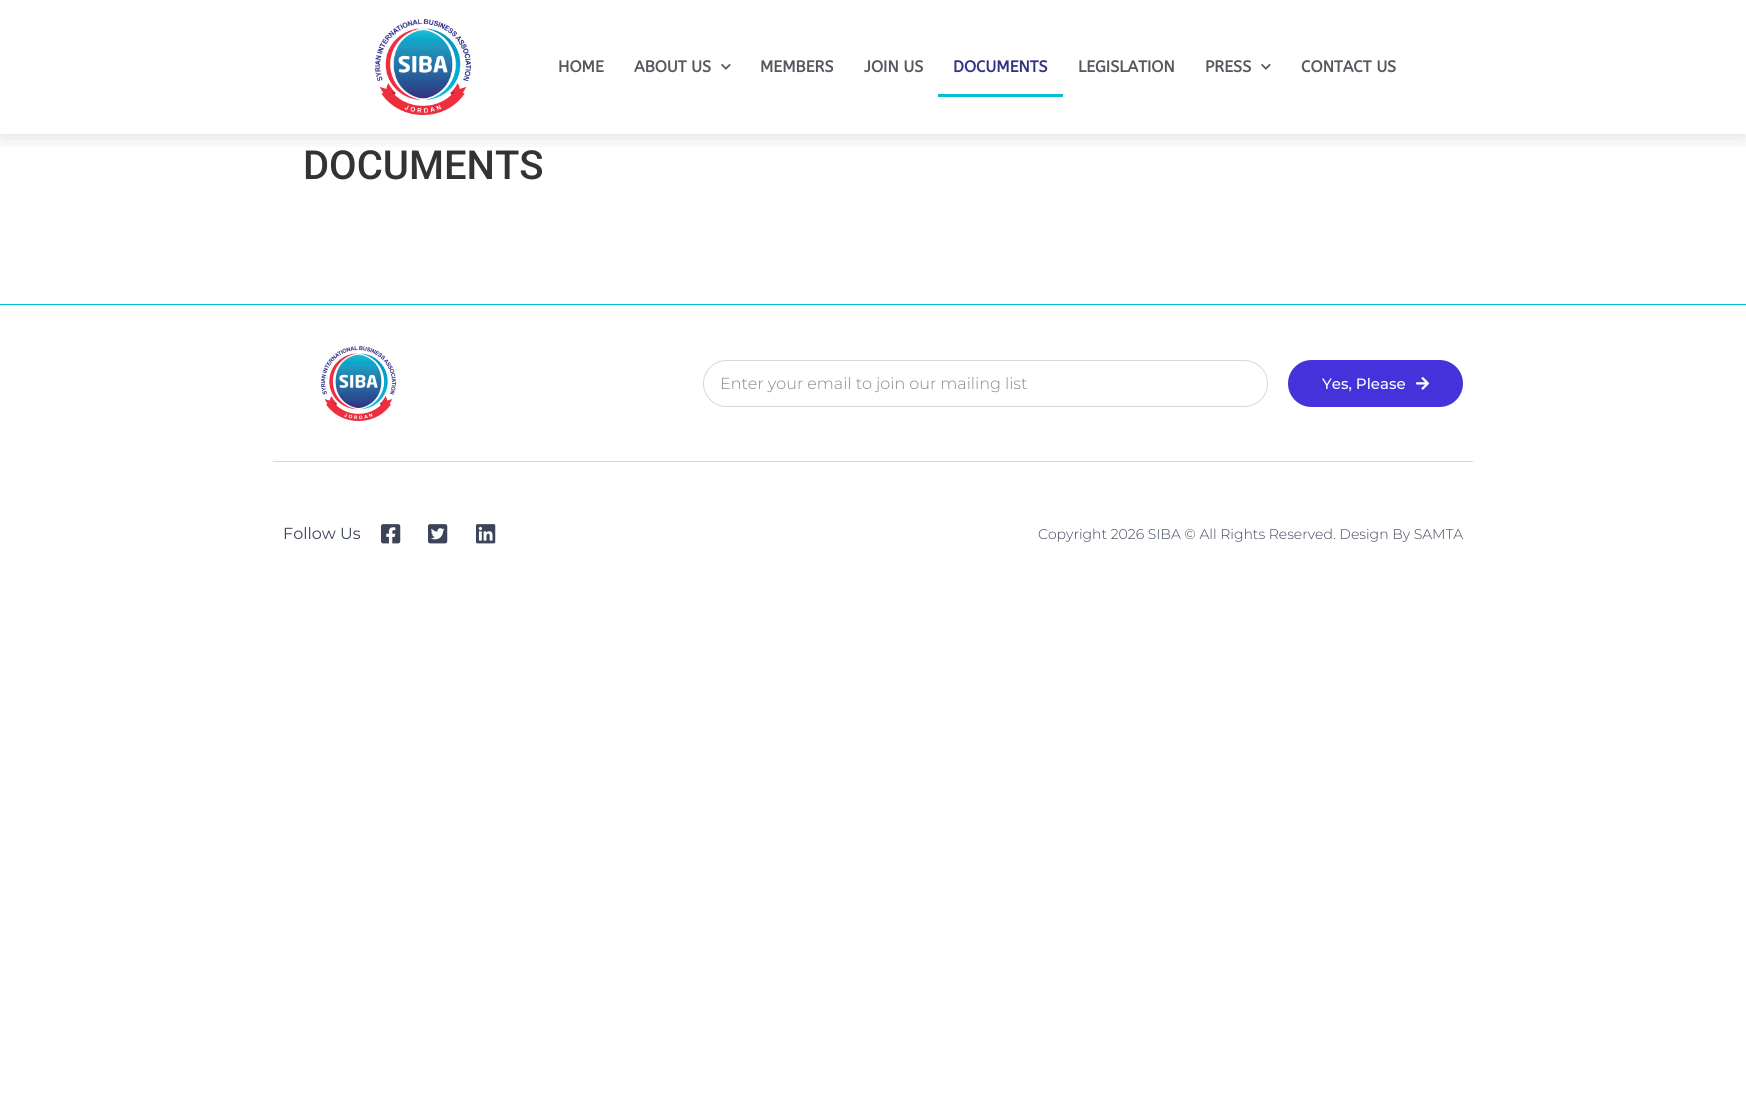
#include <cairo/cairo.h>
#include <math.h>
#include <stddef.h>

static cairo_t *cr;

static void use_color(int r, int g, int b) {
  cairo_set_source_rgb(cr, r / 255.0, g / 255.0, b / 255.0);
}

static void text(double x, double y, const char *s, const char *family, double size, int italic, int bold, int r, int g, int b) {
  cairo_select_font_face(cr, family, italic ? CAIRO_FONT_SLANT_ITALIC : CAIRO_FONT_SLANT_NORMAL,
    bold ? CAIRO_FONT_WEIGHT_BOLD : CAIRO_FONT_WEIGHT_NORMAL);
  cairo_set_font_size(cr, size);
  use_color(r, g, b);
  cairo_move_to(cr, x, y);
  cairo_show_text(cr, s);
}

static void box(double x, double y, double w, double h, int r, int g, int b) {
  use_color(r, g, b);
  cairo_rectangle(cr, x, y, w, h);
  cairo_fill(cr);
}

static void round_rect(double x, double y, double w, double h, double r) {
  cairo_new_sub_path(cr);
  cairo_arc(cr, x + w - r, y + h - r, r, 0, M_PI / 2);
  cairo_arc(cr, x + r, y + h - r, r, M_PI / 2, M_PI);
  cairo_arc(cr, x + r, y + r, r, M_PI, 1.5 * M_PI);
  cairo_arc(cr, x + w - r, y + r, r, 1.5 * M_PI, 2 * M_PI);
  cairo_close_path(cr);
}

static void shadow(double x, double y, double w, double h, double r, double blur, double alpha) {
  cairo_push_group_with_content(cr, CAIRO_CONTENT_ALPHA);
  cairo_set_operator(cr, CAIRO_OPERATOR_SOURCE);
  for (int i = 15; i >= -15 && fmin(w, h) + blur * i / 3 > 0; i -= 2) {
    double e = blur * i / 6;
    cairo_set_source_rgba(cr, 0, 0, 0, alpha * erfc((i - 1) / 8.5) / 2);
    round_rect(x - e, y - e, w + 2 * e, h + 2 * e, fmax(0, fmin(r + e + blur * .6, fmin(w, h) / 2 + e)));
    cairo_fill(cr);
  }
  cairo_pattern_t *soft = cairo_pop_group(cr);
  cairo_mask(cr, soft);
  cairo_pattern_destroy(soft);
}

static void picture(const char *path, double x, double y, double w, double h) {
  cairo_surface_t *image = cairo_image_surface_create_from_png(path);
  cairo_save(cr);
  cairo_set_source_surface(cr, image, x, y);
  cairo_rectangle(cr, x, y, w, h);
  cairo_fill(cr);
  cairo_restore(cr);
  cairo_surface_destroy(image);
}

static void draw(void) {
  use_color(255, 255, 255);
  cairo_paint(cr);
  cairo_save(cr);
  cairo_rectangle(cr, 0, 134, 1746, 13);
  cairo_clip(cr);
  use_color(0, 0, 0);
  shadow(0, 0, 1746, 134, 0, 12, 0.15);
  cairo_restore(cr);
  picture("img_01.png", 375, 19, 96, 96);
  picture("img_02.png", 721, 64, 10, 6);
  box(938, 94, 125, 3, 3, 191, 215);
  picture("img_02.png", 1261, 64, 10, 6);
  box(0, 304, 1746, 1, 3, 191, 215);
  picture("img_03.png", 321, 346, 75, 75);
  round_rect(703.5, 360.5, 564, 46, 23);
  use_color(216, 216, 216);
  cairo_set_line_width(cr, 1);
  cairo_stroke(cr);
  use_color(70, 50, 218);
  round_rect(1288, 360, 175, 47, 23.5);
  cairo_fill(cr);
  picture("img_04.png", 1416, 377, 14, 13);
  box(273, 461, 1200, 1, 216, 216, 216);
  picture("img_05.png", 381, 524, 20, 20);
  picture("img_06.png", 428, 524, 20, 20);
  picture("img_07.png", 476, 524, 20, 20);
  text(558, 72, "HOME", "ABeeZee", 16, 0, 1, 84, 89, 95);
  text(634, 72, "ABOUT US", "ABeeZee", 16, 0, 1, 84, 89, 95);
  text(760, 72, "MEMBERS", "ABeeZee", 16, 0, 1, 84, 89, 95);
  text(864, 72, "JOIN US", "ABeeZee", 16, 0, 1, 84, 89, 95);
  text(953, 72, "DOCUMENTS", "ABeeZee", 16, 0, 1, 49, 50, 131);
  text(1078, 72, "LEGISLATION", "ABeeZee", 16, 0, 1, 84, 89, 95);
  text(1205, 72, "PRESS", "ABeeZee", 16, 0, 1, 84, 89, 95);
  text(1301, 72, "CONTACT US", "ABeeZee", 16, 0, 1, 84, 89, 95);
  text(303, 179, "DOCUMENTS", "Roboto Medium", 40, 0, 0, 51, 51, 51);
  text(720, 389, "Enter your email to join our mailing list", "Montserrat Light", 16, 0, 0, 134, 134, 134);
  text(1322, 389, "Yes, Please", "Montserrat Medium", 15, 0, 0, 255, 255, 255);
  text(283, 539, "Follow Us", "Montserrat", 16, 0, 0, 61, 68, 89);
  text(1038, 539, "Copyright 2026 SIBA © All Rights Reserved. Design By SAMTA", "Montserrat Light", 14, 0, 0, 61, 68, 89);
}

int main(void) {
  cairo_surface_t *surface = cairo_image_surface_create(CAIRO_FORMAT_RGB24, 1746, 1113);
  cr = cairo_create(surface);
  cairo_font_options_t *options = cairo_font_options_create();
  cairo_font_options_set_hint_metrics(options, CAIRO_HINT_METRICS_OFF);
  cairo_font_options_set_hint_style(options, CAIRO_HINT_STYLE_NONE);
  cairo_set_font_options(cr, options);
  cairo_set_miter_limit(cr, 4);
  draw();
  cairo_surface_write_to_png(surface, "out.png");
  cairo_font_options_destroy(options);
  cairo_destroy(cr);
  cairo_surface_destroy(surface);
  return 0;
}
